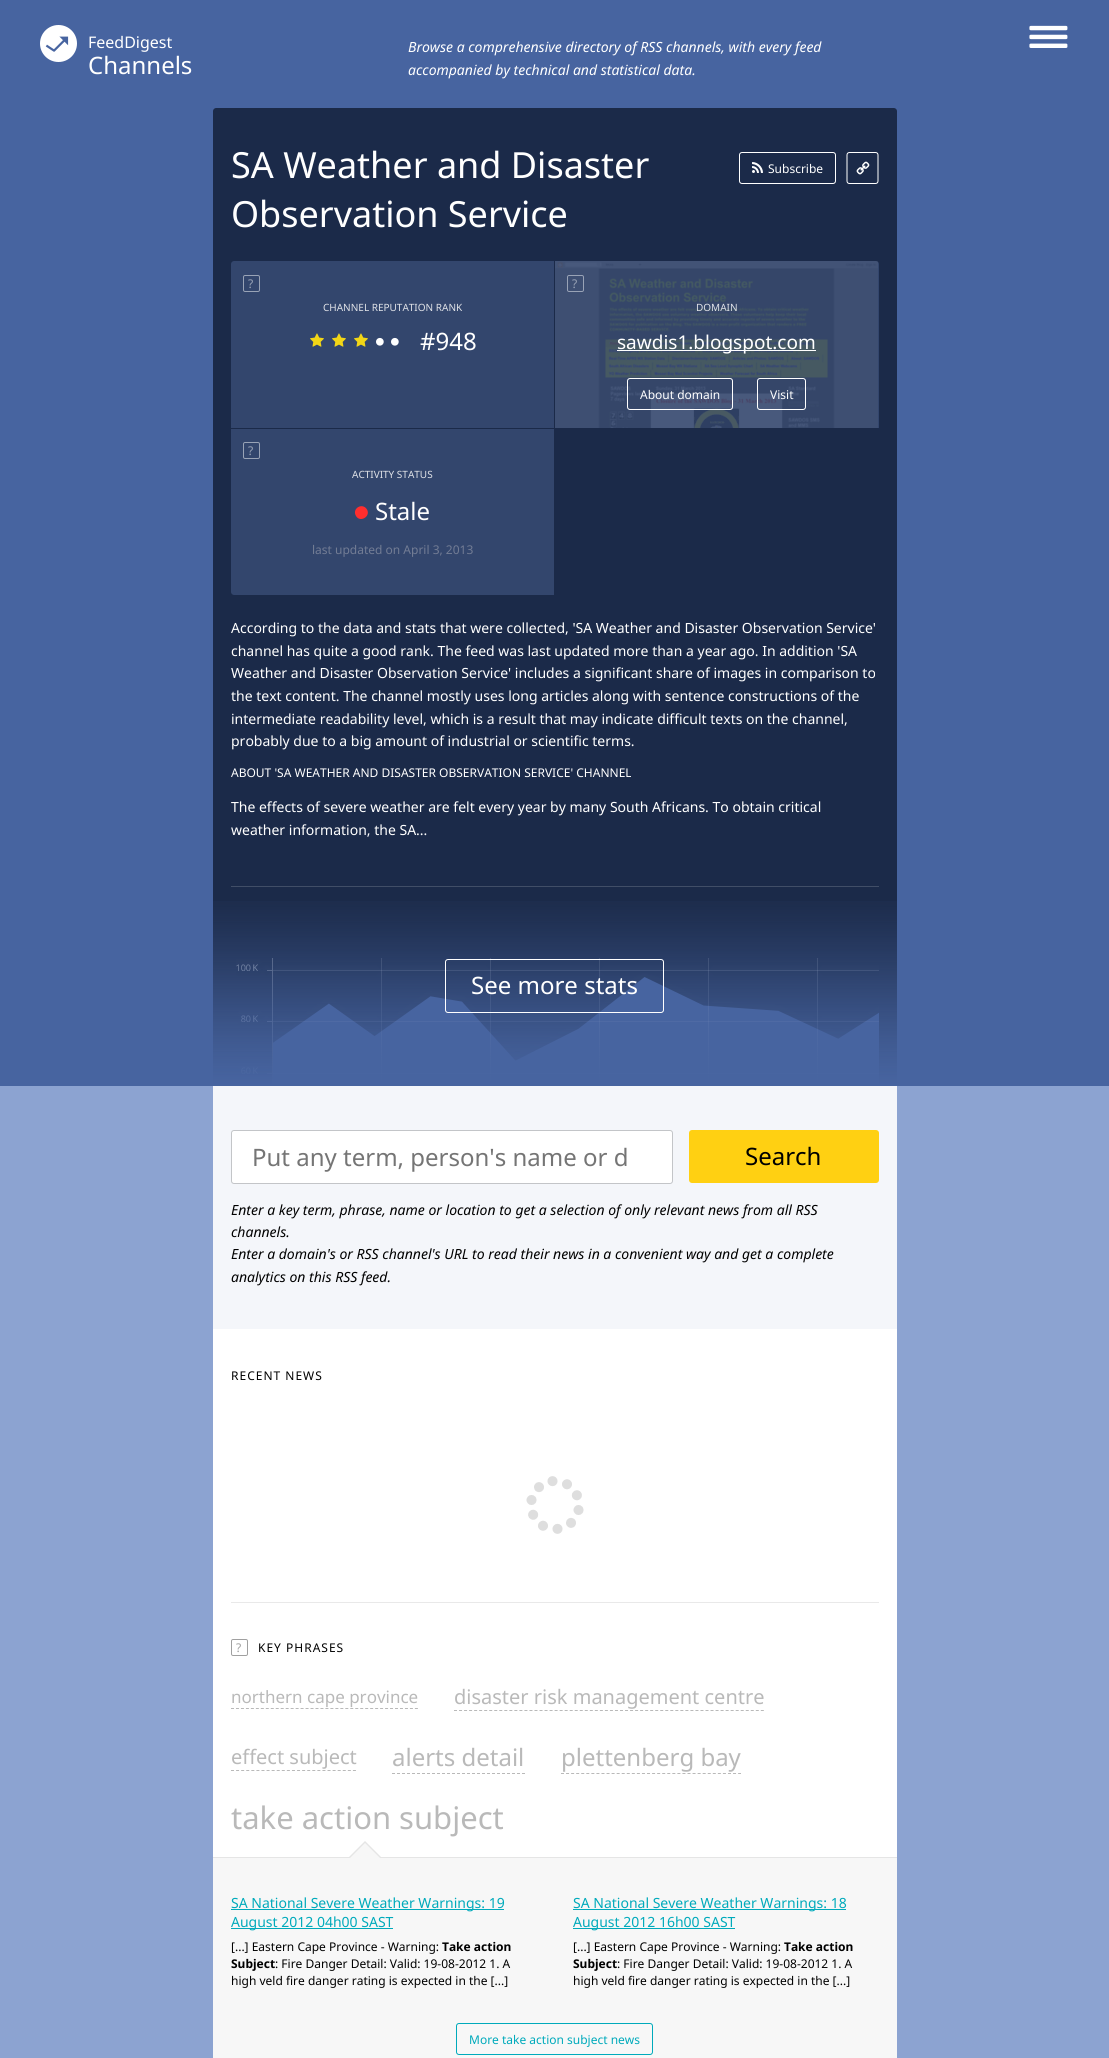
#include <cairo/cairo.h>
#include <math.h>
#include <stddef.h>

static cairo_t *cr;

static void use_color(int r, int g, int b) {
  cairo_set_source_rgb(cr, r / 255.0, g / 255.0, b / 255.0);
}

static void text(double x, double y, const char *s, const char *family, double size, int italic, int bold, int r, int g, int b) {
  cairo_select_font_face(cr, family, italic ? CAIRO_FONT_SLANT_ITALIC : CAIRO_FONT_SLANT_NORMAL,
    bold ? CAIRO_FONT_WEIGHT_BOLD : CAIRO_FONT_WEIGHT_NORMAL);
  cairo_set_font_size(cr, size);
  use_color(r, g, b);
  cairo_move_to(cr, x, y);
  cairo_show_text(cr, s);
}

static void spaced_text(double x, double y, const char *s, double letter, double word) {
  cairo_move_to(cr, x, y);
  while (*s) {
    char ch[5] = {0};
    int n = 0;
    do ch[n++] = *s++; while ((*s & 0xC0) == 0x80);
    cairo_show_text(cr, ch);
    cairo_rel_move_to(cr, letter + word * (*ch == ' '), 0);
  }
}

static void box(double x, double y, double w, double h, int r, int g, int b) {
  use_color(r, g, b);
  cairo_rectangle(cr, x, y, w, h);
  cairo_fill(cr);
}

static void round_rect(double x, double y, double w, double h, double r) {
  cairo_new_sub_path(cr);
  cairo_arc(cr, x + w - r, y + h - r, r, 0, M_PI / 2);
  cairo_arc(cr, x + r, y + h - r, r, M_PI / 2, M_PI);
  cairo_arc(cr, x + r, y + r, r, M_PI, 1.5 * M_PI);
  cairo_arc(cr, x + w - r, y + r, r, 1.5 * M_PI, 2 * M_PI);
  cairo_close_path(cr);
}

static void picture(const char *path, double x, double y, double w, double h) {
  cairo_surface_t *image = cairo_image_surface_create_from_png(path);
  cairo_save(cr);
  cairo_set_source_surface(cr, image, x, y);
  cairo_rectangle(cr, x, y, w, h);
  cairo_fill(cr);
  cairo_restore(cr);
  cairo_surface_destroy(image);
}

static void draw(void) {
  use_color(71, 100, 160);
  cairo_paint(cr);
  picture("img_01.png", 40, 25, 37, 37);
  picture("img_02.png", 1029, 25, 39, 23);
  use_color(27, 42, 73);
  cairo_new_path(cr);
  cairo_move_to(cr, 216, 108);
  cairo_line_to(cr, 894, 108);
  cairo_curve_to(cr, 895.5, 108, 897, 109.5, 897, 111);
  cairo_line_to(cr, 897, 1086);
  cairo_line_to(cr, 213, 1086);
  cairo_line_to(cr, 213, 111);
  cairo_curve_to(cr, 213, 109.5, 214.5, 108, 216, 108);
  cairo_close_path(cr);
  cairo_fill(cr);
  round_rect(739.5, 152.5, 96, 31, 2.5);
  use_color(255, 255, 255);
  cairo_set_line_width(cr, 1);
  cairo_stroke(cr);
  picture("img_03.png", 752, 162, 11, 11);
  cairo_new_path(cr);
  cairo_move_to(cr, 878, 155);
  cairo_line_to(cr, 878, 181);
  cairo_curve_to(cr, 878, 182.5, 877, 183.5, 875.5, 183.5);
  cairo_line_to(cr, 849.5, 183.5);
  cairo_curve_to(cr, 848, 183.5, 847, 182.5, 847, 181);
  cairo_line_to(cr, 847, 155);
  cairo_curve_to(cr, 847, 153.5, 848, 152.5, 849.5, 152.5);
  cairo_line_to(cr, 875.5, 152.5);
  cairo_curve_to(cr, 877, 152.5, 878, 153.5, 878, 155);
  cairo_close_path(cr);
  cairo_stroke(cr);
  picture("img_04.png", 856, 161, 14, 14);
  use_color(51, 70, 109);
  cairo_new_path(cr);
  cairo_move_to(cr, 234, 261);
  cairo_line_to(cr, 555, 261);
  cairo_line_to(cr, 555, 428);
  cairo_line_to(cr, 231, 428);
  cairo_line_to(cr, 231, 264);
  cairo_curve_to(cr, 231, 262.5, 232.5, 261, 234, 261);
  cairo_close_path(cr);
  cairo_fill(cr);
  round_rect(243.5, 275.5, 16, 16, 1.5);
  use_color(153, 163, 182);
  cairo_stroke(cr);
  picture("img_05.png", 310, 333, 14, 14);
  picture("img_05.png", 332, 333, 14, 14);
  picture("img_05.png", 354, 333, 14, 14);
  picture("img_06.png", 376, 337, 8, 9);
  picture("img_06.png", 391, 337, 8, 9);
  use_color(51, 70, 109);
  cairo_new_path(cr);
  cairo_move_to(cr, 231, 428);
  cairo_line_to(cr, 555, 428);
  cairo_line_to(cr, 555, 595);
  cairo_line_to(cr, 234, 595);
  cairo_curve_to(cr, 232.5, 595, 231, 593.5, 231, 592);
  cairo_close_path(cr);
  cairo_fill(cr);
  box(231, 428, 324, 1, 27, 42, 73);
  box(554, 261, 1, 334, 27, 42, 73);
  use_color(51, 70, 109);
  cairo_new_path(cr);
  cairo_move_to(cr, 555, 261);
  cairo_line_to(cr, 876, 261);
  cairo_curve_to(cr, 877.5, 261, 879, 262.5, 879, 264);
  cairo_line_to(cr, 879, 428);
  cairo_line_to(cr, 555, 428);
  cairo_close_path(cr);
  cairo_fill(cr);
  picture("img_07.png", 555, 261, 323, 167);
  round_rect(567.5, 275.5, 16, 16, 1.5);
  use_color(153, 163, 182);
  cairo_stroke(cr);
  box(617, 350, 199, 1, 255, 255, 255);
  round_rect(627.5, 378.5, 105, 31, 2.5);
  cairo_stroke(cr);
  round_rect(757.5, 378.5, 48, 31, 2.5);
  cairo_stroke(cr);
  round_rect(243.5, 442.5, 16, 16, 1.5);
  use_color(153, 163, 182);
  cairo_stroke(cr);
  use_color(255, 46, 46);
  cairo_new_path(cr);
  cairo_move_to(cr, 367, 509.5);
  cairo_curve_to(cr, 371, 516.5, 360, 523, 356, 516);
  cairo_curve_to(cr, 351.5, 508.5, 362.5, 502, 367, 509.5);
  cairo_close_path(cr);
  cairo_fill(cr);
  picture("img_09.png", 236, 958, 643, 126);
  picture("img_08.png", 213, 901, 684, 185);
  box(231, 886, 648, 1, 65, 78, 103);
  round_rect(445.5, 959.5, 218, 53, 2.5);
  use_color(255, 255, 255);
  cairo_stroke(cr);
  box(0, 1086, 1109, 972, 140, 163, 209);
  box(213, 1329, 684, 528, 255, 255, 255);
  box(213, 1086, 684, 243, 244, 246, 250);
  use_color(255, 255, 255);
  round_rect(231.5, 1130.5, 441, 53, 2.5);
  cairo_fill_preserve(cr);
  use_color(195, 197, 200);
  cairo_stroke(cr);
  use_color(255, 208, 18);
  round_rect(689, 1130, 190, 53, 3);
  cairo_fill(cr);
  picture("img_10.png", 526, 1476, 58, 58);
  box(231, 1602, 648, 1, 233, 233, 233);
  round_rect(231.5, 1639.5, 16, 16, 1.5);
  use_color(160, 160, 160);
  cairo_stroke(cr);
  cairo_new_path(cr);
  cairo_move_to(cr, 231, 1708.5);
  cairo_line_to(cr, 418, 1708.5);
  use_color(185, 185, 185);
  cairo_set_dash(cr, (double[]){3, 1.97}, 2, 0);
  cairo_stroke(cr);
  cairo_new_path(cr);
  cairo_move_to(cr, 454, 1710.5);
  cairo_line_to(cr, 764, 1710.5);
  cairo_set_dash(cr, (double[]){3, 2.03}, 2, 0);
  cairo_stroke(cr);
  cairo_new_path(cr);
  cairo_move_to(cr, 231, 1770.5);
  cairo_line_to(cr, 356, 1770.5);
  cairo_set_dash(cr, (double[]){3, 2.08}, 2, 0);
  cairo_stroke(cr);
  cairo_new_path(cr);
  cairo_move_to(cr, 392, 1773.5);
  cairo_line_to(cr, 525, 1773.5);
  cairo_set_dash(cr, (double[]){3, 2}, 2, 0);
  cairo_stroke(cr);
  cairo_new_path(cr);
  cairo_move_to(cr, 561, 1773.5);
  cairo_line_to(cr, 741, 1773.5);
  cairo_set_dash(cr, (double[]){3, 2.06}, 2, 0);
  cairo_stroke(cr);
  box(213, 1857, 684, 1, 229, 229, 229);
  cairo_new_path(cr);
  cairo_move_to(cr, 382, 1858);
  cairo_line_to(cr, 348, 1858);
  cairo_line_to(cr, 365, 1841);
  cairo_close_path(cr);
  cairo_fill(cr);
  use_color(247, 247, 247);
  cairo_new_path(cr);
  cairo_move_to(cr, 380, 1858);
  cairo_line_to(cr, 350, 1858);
  cairo_line_to(cr, 365, 1843);
  cairo_close_path(cr);
  cairo_fill(cr);
  box(213, 1858, 684, 200, 247, 247, 247);
  box(231, 1909, 273, 1, 0, 170, 187);
  box(231, 1928, 162, 1, 0, 170, 187);
  box(573, 1909, 273, 1, 0, 170, 187);
  box(573, 1928, 162, 1, 0, 170, 187);
  round_rect(456.5, 2023.5, 196, 31, 2.5);
  cairo_set_dash(cr, NULL, 0, 0);
  cairo_stroke(cr);
  text(88, 48, "FeedDigest", "Noto Sans", 16, 0, 0, 255, 255, 255);
  text(88, 74, "Channels", "Noto Sans", 24, 0, 0, 255, 255, 255);
  text(408, 52, "Browse a comprehensive directory of RSS channels, with every feed", "Noto Sans", 14, 1, 0, 255, 255, 255);
  text(408, 75, "accompanied by technical and statistical data.", "Noto Sans", 14, 1, 0, 255, 255, 255);
  text(231, 178, "SA Weather and Disaster", "Noto Sans", 36, 0, 0, 255, 255, 255);
  text(231, 227, "Observation Service", "Noto Sans", 36, 0, 0, 255, 255, 255);
  text(768, 173, "Subscribe", "Noto Sans", 12, 0, 0, 255, 255, 255);
  text(248, 288, "?", "Noto Sans", 12, 0, 0, 153, 163, 182);
  text(323, 311, "CHANNEL REPUTATION RANK", "Noto Sans", 10, 0, 0, 224, 226, 231);
  text(420, 350, "#948", "Noto Sans", 24, 0, 0, 255, 255, 255);
  text(572, 288, "?", "Noto Sans", 12, 0, 0, 153, 163, 182);
  text(696, 311, "DOMAIN", "Noto Sans", 10, 0, 0, 224, 226, 231);
  text(617, 349, "sawdis1.blogspot.com", "Noto Sans", 19, 0, 0, 255, 255, 255);
  text(640, 399, "About domain", "Noto Sans", 12, 0, 0, 255, 255, 255);
  text(770, 399, "Visit", "Noto Sans", 12, 0, 0, 255, 255, 255);
  text(248, 455, "?", "Noto Sans", 12, 0, 0, 153, 163, 182);
  text(352, 478, "ACTIVITY STATUS", "Noto Sans", 10, 0, 0, 224, 226, 231);
  text(375, 520, "Stale", "Noto Sans", 24, 0, 0, 255, 255, 255);
  text(312, 554, "last updated on April 3, 2013", "Noto Sans", 12, 0, 0, 114, 124, 148);
  text(231, 633, "According to the data and stats that were collected, 'SA Weather and Disaster Observation Service'", "Noto Sans", 14, 0, 0, 255, 255, 255);
  text(231, 656, "channel has quite a good rank. The feed was last updated more than a year ago. In addition 'SA", "Noto Sans", 14, 0, 0, 255, 255, 255);
  text(231, 678, "Weather and Disaster Observation Service' includes a significant share of images in comparison to", "Noto Sans", 14, 0, 0, 255, 255, 255);
  text(231, 701, "the text content. The channel mostly uses long articles along with sentence constructions of the", "Noto Sans", 14, 0, 0, 255, 255, 255);
  text(231, 724, "intermediate readability level, which is a result that may indicate difficult texts on the channel,", "Noto Sans", 14, 0, 0, 255, 255, 255);
  text(231, 746, "probably due to a big amount of industrial or scientific terms.", "Noto Sans", 14, 0, 0, 255, 255, 255);
  text(231, 777, "ABOUT 'SA WEATHER AND DISASTER OBSERVATION SERVICE' CHANNEL", "Noto Sans", 12, 0, 0, 255, 255, 255);
  text(231, 812, "The effects of severe weather are felt every year by many South Africans. To obtain critical", "Noto Sans", 14, 0, 0, 255, 255, 255);
  text(231, 835, "weather information, the SA...", "Noto Sans", 14, 0, 0, 255, 255, 255);
  text(471, 994, "See more stats", "Noto Sans", 24, 0, 0, 255, 255, 255);
  text(252, 1166, "Put any term, person's name or d", "Noto Sans", 24, 0, 0, 117, 117, 117);
  text(745, 1165, "Search", "Noto Sans", 24, 0, 0, 0, 0, 0);
  text(231, 1215, "Enter a key term, phrase, name or location to get a selection of only relevant news from all RSS", "Noto Sans", 14, 1, 0, 0, 0, 0);
  text(231, 1237, "channels.", "Noto Sans", 14, 1, 0, 0, 0, 0);
  text(231, 1259, "Enter a domain's or RSS channel's URL to read their news in a convenient way and get a complete", "Noto Sans", 14, 1, 0, 0, 0, 0);
  text(231, 1282, "analytics on this RSS feed.", "Noto Sans", 14, 1, 0, 0, 0, 0);
  cairo_select_font_face(cr, "Noto Sans", CAIRO_FONT_SLANT_NORMAL, CAIRO_FONT_WEIGHT_NORMAL);
  cairo_set_font_size(cr, 12);
  spaced_text(231, 1380, "RECENT NEWS", 1, 0);
  text(236, 1652, "?", "Noto Sans", 12, 0, 0, 160, 160, 160);
  use_color(0, 0, 0);
  spaced_text(258, 1652, "KEY PHRASES", 1, 0);
  text(231, 1703, "northern cape province", "Noto Sans", 17, 0, 0, 185, 185, 185);
  text(454, 1704, "disaster risk management centre", "Noto Sans", 20, 0, 0, 185, 185, 185);
  text(231, 1764, "effect subject", "Noto Sans", 20, 0, 0, 185, 185, 185);
  text(392, 1766, "alerts detail", "Noto Sans", 24, 0, 0, 185, 185, 185);
  text(561, 1766, "plettenberg bay", "Noto Sans", 24, 0, 0, 185, 185, 185);
  text(231, 1829, "take action subject", "Noto Sans", 31, 0, 0, 185, 185, 185);
  text(231, 1908, "SA National Severe Weather Warnings: 19", "Noto Sans", 14, 0, 0, 0, 170, 187);
  text(231, 1927, "August 2012 04h00 SAST", "Noto Sans", 14, 0, 0, 0, 170, 187);
  text(231, 1951, "[...] Eastern Cape Province - Warning:", "Noto Sans", 12, 0, 0, 0, 0, 0);
  text(442, 1951, "Take action", "Noto Sans", 12, 0, 1, 0, 0, 0);
  text(231, 1968, "Subject", "Noto Sans", 12, 0, 1, 0, 0, 0);
  text(275, 1968, ": Fire Danger Detail: Valid: 19-08-2012 1. A", "Noto Sans", 12, 0, 0, 0, 0, 0);
  text(231, 1985, "high veld fire danger rating is expected in the [...]", "Noto Sans", 12, 0, 0, 0, 0, 0);
  text(573, 1908, "SA National Severe Weather Warnings: 18", "Noto Sans", 14, 0, 0, 0, 170, 187);
  text(573, 1927, "August 2012 16h00 SAST", "Noto Sans", 14, 0, 0, 0, 170, 187);
  text(573, 1951, "[...] Eastern Cape Province - Warning:", "Noto Sans", 12, 0, 0, 0, 0, 0);
  text(784, 1951, "Take action", "Noto Sans", 12, 0, 1, 0, 0, 0);
  text(573, 1968, "Subject", "Noto Sans", 12, 0, 1, 0, 0, 0);
  text(617, 1968, ": Fire Danger Detail: Valid: 19-08-2012 1. A", "Noto Sans", 12, 0, 0, 0, 0, 0);
  text(573, 1985, "high veld fire danger rating is expected in the [...]", "Noto Sans", 12, 0, 0, 0, 0, 0);
  text(469, 2044, "More take action subject news", "Noto Sans", 12, 0, 0, 0, 170, 187);
}

int main(void) {
  cairo_surface_t *surface = cairo_image_surface_create(CAIRO_FORMAT_RGB24, 1109, 2058);
  cr = cairo_create(surface);
  cairo_font_options_t *options = cairo_font_options_create();
  cairo_font_options_set_hint_metrics(options, CAIRO_HINT_METRICS_OFF);
  cairo_font_options_set_hint_style(options, CAIRO_HINT_STYLE_NONE);
  cairo_set_font_options(cr, options);
  cairo_set_miter_limit(cr, 4);
  draw();
  cairo_surface_write_to_png(surface, "out.png");
  cairo_font_options_destroy(options);
  cairo_destroy(cr);
  cairo_surface_destroy(surface);
  return 0;
}
